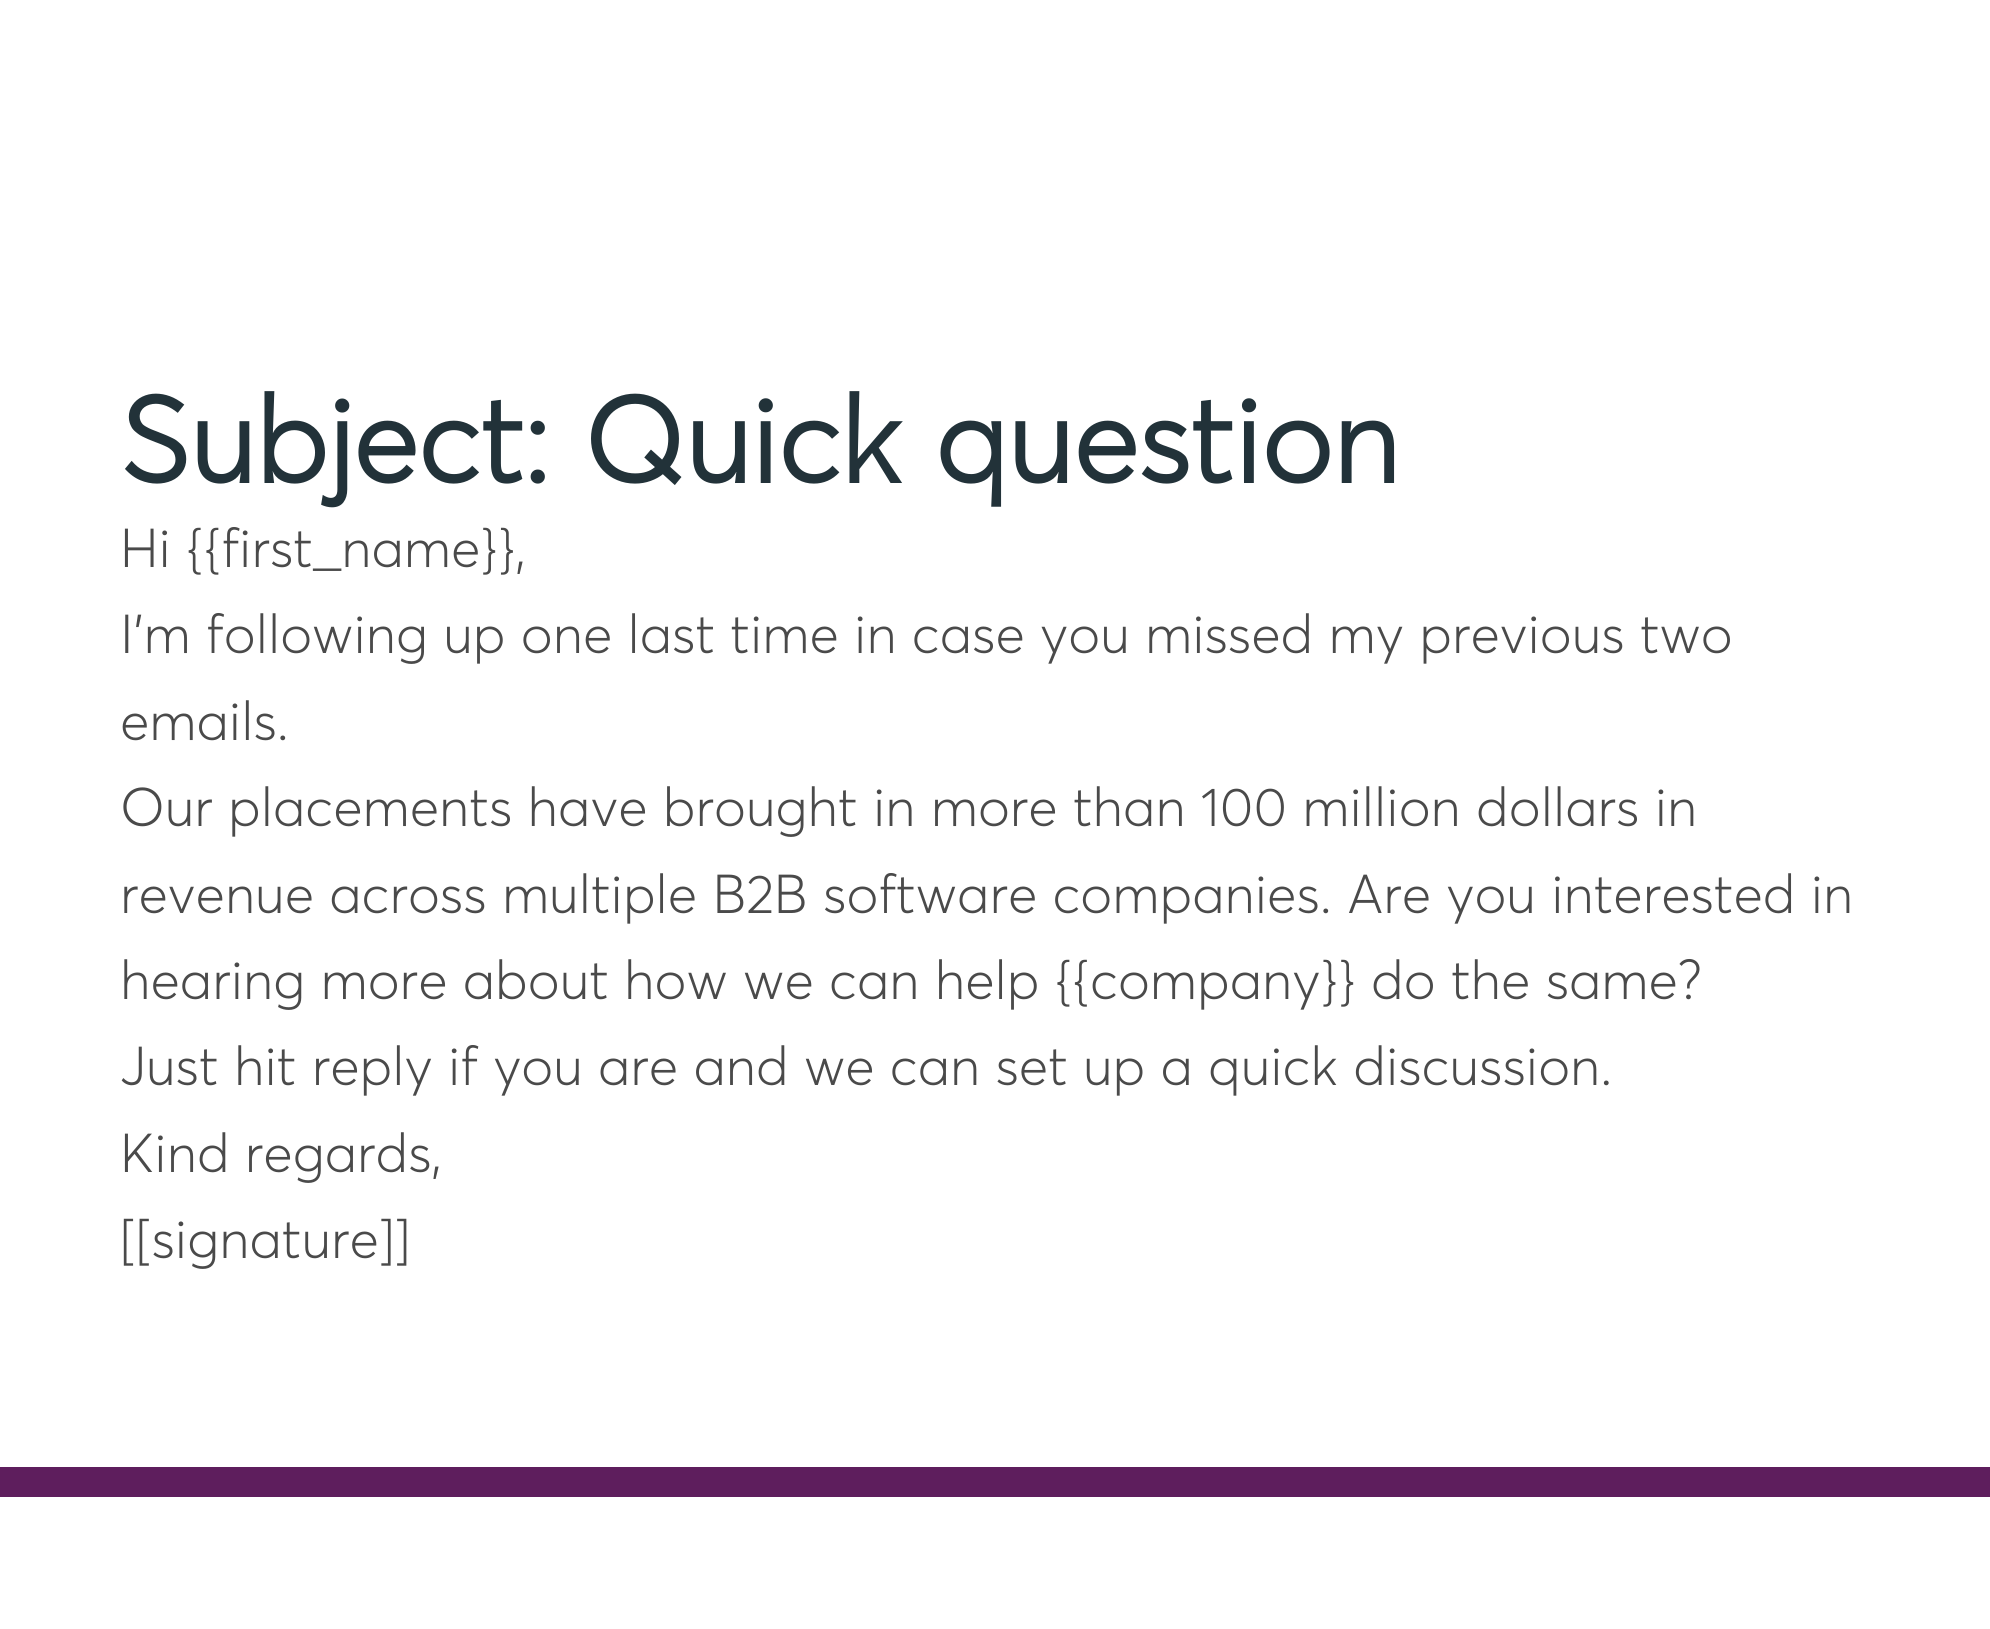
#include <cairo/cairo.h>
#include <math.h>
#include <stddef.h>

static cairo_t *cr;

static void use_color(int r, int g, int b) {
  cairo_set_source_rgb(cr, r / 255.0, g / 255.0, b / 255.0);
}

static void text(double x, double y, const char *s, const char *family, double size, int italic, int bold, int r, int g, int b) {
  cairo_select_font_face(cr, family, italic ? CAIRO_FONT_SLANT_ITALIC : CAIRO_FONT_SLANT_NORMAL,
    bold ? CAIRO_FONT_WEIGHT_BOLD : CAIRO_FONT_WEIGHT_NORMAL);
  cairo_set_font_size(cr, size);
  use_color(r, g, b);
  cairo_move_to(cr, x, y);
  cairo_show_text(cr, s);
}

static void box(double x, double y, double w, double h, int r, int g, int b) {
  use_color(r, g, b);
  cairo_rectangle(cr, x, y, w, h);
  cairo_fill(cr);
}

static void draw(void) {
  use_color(255, 255, 255);
  cairo_paint(cr);
  box(0, 1467, 1990, 30, 94, 30, 93);
  text(120, 483, "Subject: Quick question", "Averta", 120, 0, 1, 34, 50, 57);
  text(120, 567, "Hi {{first_name}},", "Averta Light", 54, 0, 0, 74, 74, 74);
  text(120, 653, "I’m following up one last time in case you missed my previous two", "Averta Light", 54, 0, 0, 74, 74, 74);
  text(120, 740, "emails.", "Averta Light", 54, 0, 0, 74, 74, 74);
  text(120, 826, "Our placements have brought in more than 100 million dollars in", "Averta Light", 54, 0, 0, 74, 74, 74);
  text(120, 913, "revenue across multiple B2B software companies. Are you interested in", "Averta Light", 54, 0, 0, 74, 74, 74);
  text(120, 999, "hearing more about how we can help {{company}} do the same?", "Averta Light", 54, 0, 0, 74, 74, 74);
  text(120, 1085, "Just hit reply if you are and we can set up a quick discussion.", "Averta Light", 54, 0, 0, 74, 74, 74);
  text(120, 1172, "Kind regards,", "Averta Light", 54, 0, 0, 74, 74, 74);
  text(120, 1258, "[[signature]]", "Averta Light", 54, 0, 0, 74, 74, 74);
}

int main(void) {
  cairo_surface_t *surface = cairo_image_surface_create(CAIRO_FORMAT_RGB24, 1990, 1629);
  cr = cairo_create(surface);
  cairo_font_options_t *options = cairo_font_options_create();
  cairo_font_options_set_hint_metrics(options, CAIRO_HINT_METRICS_OFF);
  cairo_font_options_set_hint_style(options, CAIRO_HINT_STYLE_NONE);
  cairo_set_font_options(cr, options);
  cairo_set_miter_limit(cr, 4);
  draw();
  cairo_surface_write_to_png(surface, "out.png");
  cairo_font_options_destroy(options);
  cairo_destroy(cr);
  cairo_surface_destroy(surface);
  return 0;
}
